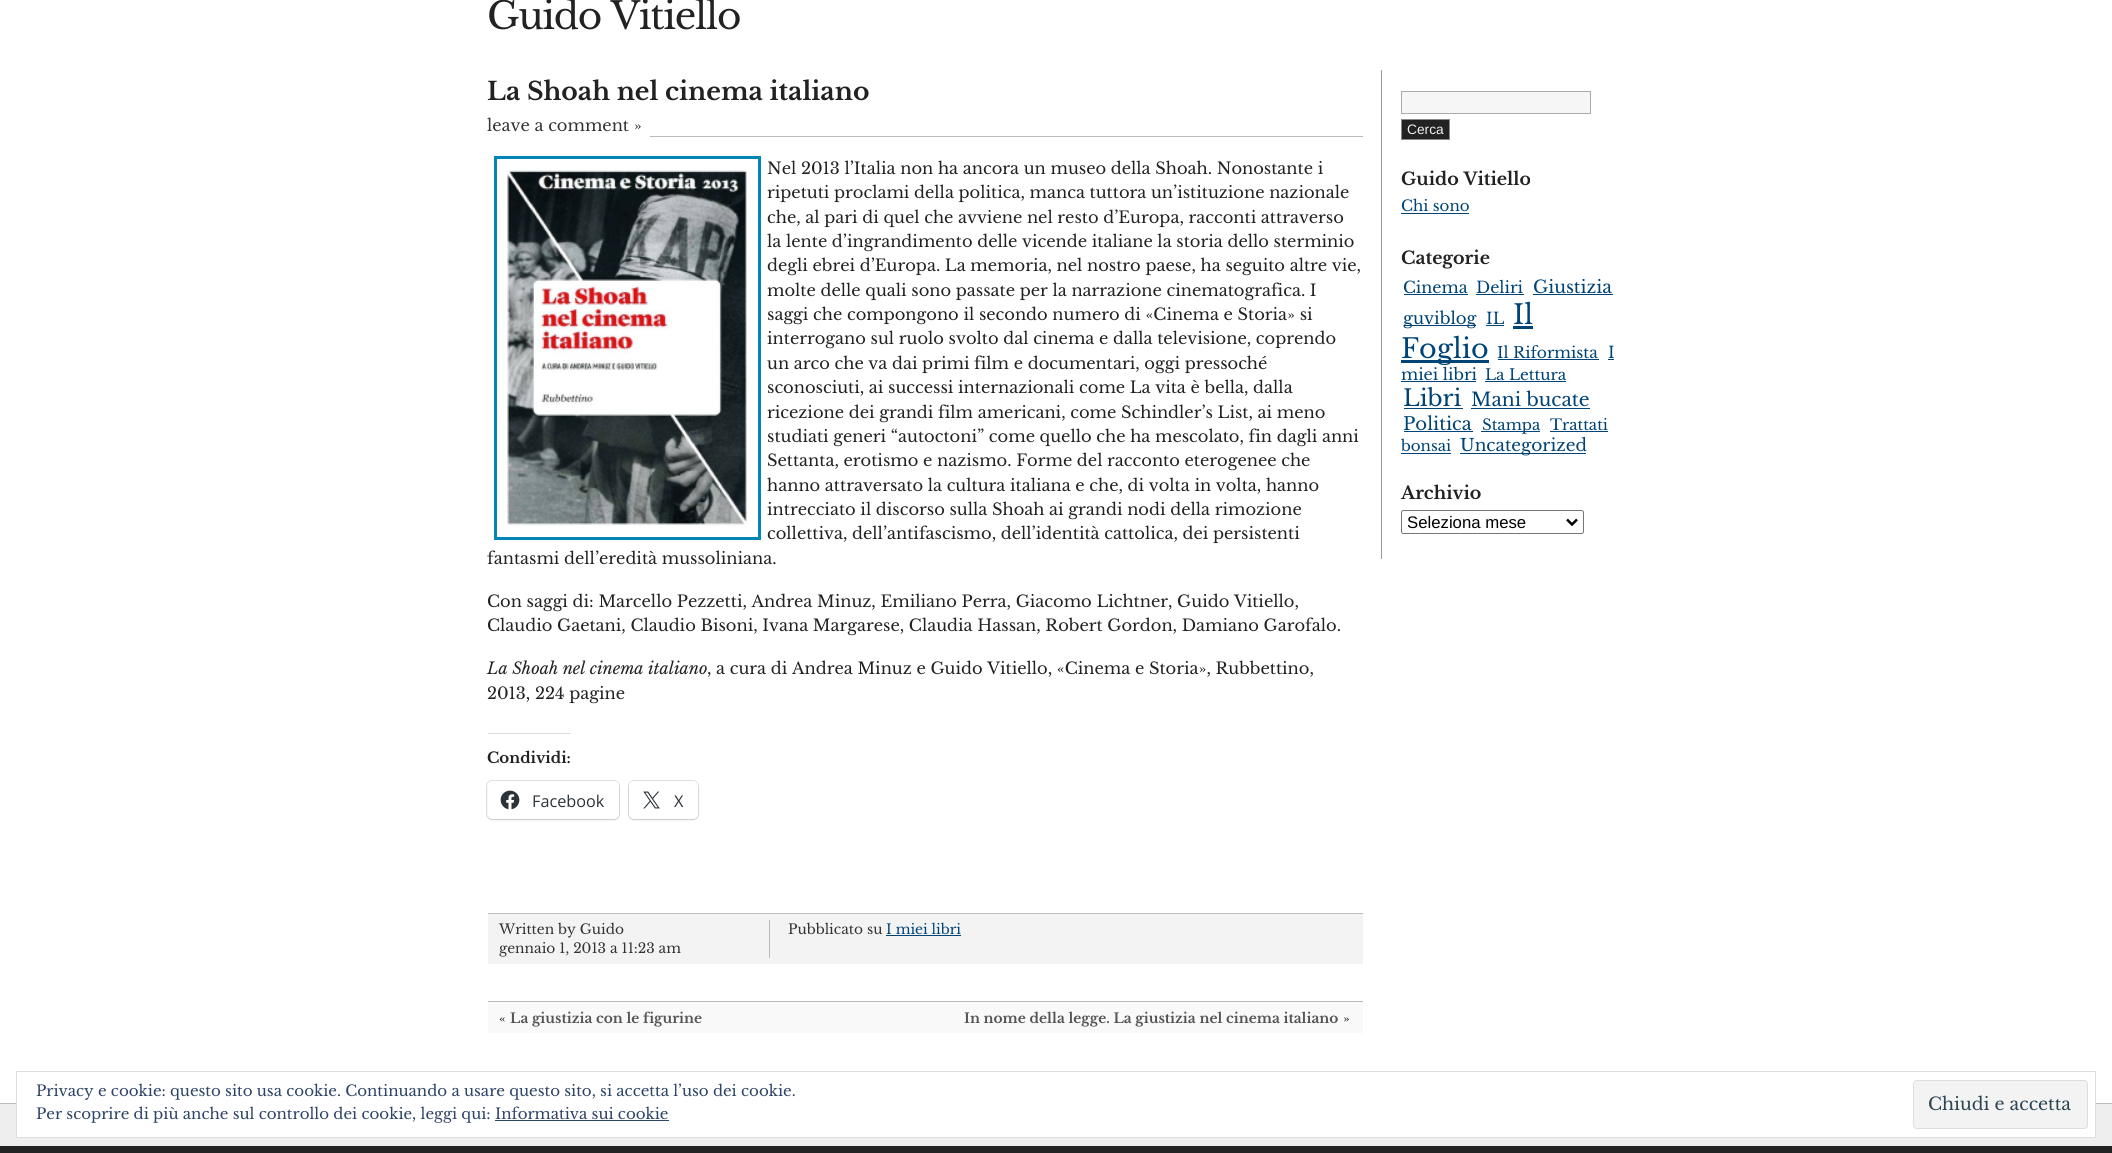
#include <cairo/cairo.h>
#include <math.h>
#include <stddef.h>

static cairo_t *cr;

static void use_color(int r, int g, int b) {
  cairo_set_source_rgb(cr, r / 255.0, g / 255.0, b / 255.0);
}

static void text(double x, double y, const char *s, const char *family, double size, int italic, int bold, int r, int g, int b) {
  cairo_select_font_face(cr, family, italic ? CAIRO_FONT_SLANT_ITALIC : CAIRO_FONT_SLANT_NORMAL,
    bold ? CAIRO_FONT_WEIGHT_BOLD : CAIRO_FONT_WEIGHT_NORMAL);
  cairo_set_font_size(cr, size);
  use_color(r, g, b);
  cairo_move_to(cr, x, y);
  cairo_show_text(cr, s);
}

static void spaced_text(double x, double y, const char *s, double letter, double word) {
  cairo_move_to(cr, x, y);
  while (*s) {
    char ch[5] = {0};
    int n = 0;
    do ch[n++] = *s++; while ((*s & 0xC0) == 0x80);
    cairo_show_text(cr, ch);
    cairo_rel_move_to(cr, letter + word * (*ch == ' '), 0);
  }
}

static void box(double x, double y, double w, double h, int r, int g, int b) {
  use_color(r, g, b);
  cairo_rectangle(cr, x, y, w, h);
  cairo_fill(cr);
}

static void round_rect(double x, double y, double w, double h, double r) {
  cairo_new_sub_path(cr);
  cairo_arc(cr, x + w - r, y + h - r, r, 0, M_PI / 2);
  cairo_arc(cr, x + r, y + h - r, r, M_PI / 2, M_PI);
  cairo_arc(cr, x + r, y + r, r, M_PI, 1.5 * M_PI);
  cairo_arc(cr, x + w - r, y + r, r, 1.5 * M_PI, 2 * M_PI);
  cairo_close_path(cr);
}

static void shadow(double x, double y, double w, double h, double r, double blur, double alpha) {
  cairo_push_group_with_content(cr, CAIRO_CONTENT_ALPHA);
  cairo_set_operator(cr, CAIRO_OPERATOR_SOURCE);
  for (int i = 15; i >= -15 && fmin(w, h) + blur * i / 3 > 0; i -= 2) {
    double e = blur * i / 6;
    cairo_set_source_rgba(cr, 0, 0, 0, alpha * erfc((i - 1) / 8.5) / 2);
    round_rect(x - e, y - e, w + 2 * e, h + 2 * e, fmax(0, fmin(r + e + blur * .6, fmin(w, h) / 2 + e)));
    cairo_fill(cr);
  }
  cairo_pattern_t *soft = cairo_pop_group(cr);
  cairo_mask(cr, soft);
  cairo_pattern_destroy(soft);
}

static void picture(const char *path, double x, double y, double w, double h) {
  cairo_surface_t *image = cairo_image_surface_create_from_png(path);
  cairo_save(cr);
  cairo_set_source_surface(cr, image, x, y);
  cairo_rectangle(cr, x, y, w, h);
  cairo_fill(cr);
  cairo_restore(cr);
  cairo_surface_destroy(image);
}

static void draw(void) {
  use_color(255, 255, 255);
  cairo_paint(cr);
  box(650, 136, 713, 1, 187, 187, 187);
  cairo_rectangle(cr, 495.5, 157.5, 264, 381);
  use_color(0, 133, 181);
  cairo_set_line_width(cr, 3);
  cairo_stroke(cr);
  picture("img_01.png", 507, 170, 240, 356);
  box(488, 733, 83, 1, 220, 220, 222);
  round_rect(486.5, 780.5, 133, 39, 5.5);
  use_color(224, 224, 224);
  cairo_set_line_width(cr, 1);
  cairo_stroke(cr);
  use_color(0, 0, 0);
  shadow(488, 783, 131, 37, 5, 1, 0.12);
  use_color(255, 255, 255);
  round_rect(488, 781, 131, 38, 5);
  cairo_fill(cr);
  picture("img_02.png", 500, 790, 20, 20);
  round_rect(628.5, 780.5, 70, 39, 5.5);
  use_color(224, 224, 224);
  cairo_stroke(cr);
  use_color(0, 0, 0);
  shadow(629, 783, 69, 37, 5, 1, 0.12);
  use_color(255, 255, 255);
  round_rect(629, 781, 69, 38, 5);
  cairo_fill(cr);
  picture("img_03.png", 643, 791, 17, 18);
  box(488, 914, 875, 50, 243, 243, 243);
  box(488, 913, 875, 1, 187, 187, 187);
  box(769, 920, 1, 38, 187, 187, 187);
  box(886, 935, 75, 1, 0, 68, 119);
  box(488, 1002, 875, 31, 249, 249, 249);
  box(488, 1001, 875, 1, 187, 187, 187);
  box(1381, 70, 1, 489, 153, 153, 153);
  use_color(246, 246, 246);
  cairo_rectangle(cr, 1401.5, 91.5, 189, 22);
  cairo_fill_preserve(cr);
  use_color(170, 170, 170);
  cairo_stroke(cr);
  use_color(34, 34, 34);
  cairo_rectangle(cr, 1401.5, 119.5, 48, 20);
  cairo_fill_preserve(cr);
  use_color(136, 136, 136);
  cairo_stroke(cr);
  box(1401, 213, 68, 1, 0, 68, 119);
  box(1404, 294, 64, 1, 0, 68, 119);
  box(1476, 294, 48, 1, 0, 68, 119);
  box(1533, 294, 80, 1, 0, 68, 119);
  box(1404, 325, 72, 1, 0, 68, 119);
  box(1486, 325, 18, 1, 0, 68, 119);
  box(1513, 326, 20, 3, 0, 68, 119);
  box(1401, 360, 88, 3, 0, 68, 119);
  box(1498, 359, 101, 1, 0, 68, 119);
  box(1608, 359, 6, 1, 0, 68, 119);
  box(1401, 381, 75, 1, 0, 68, 119);
  box(1485, 381, 81, 1, 0, 68, 119);
  box(1404, 408, 59, 1, 0, 68, 119);
  box(1471, 408, 119, 1, 0, 68, 119);
  box(1404, 431, 69, 1, 0, 68, 119);
  box(1481, 431, 59, 1, 0, 68, 119);
  box(1550, 431, 58, 1, 0, 68, 119);
  box(1401, 453, 50, 1, 0, 68, 119);
  box(1460, 453, 126, 1, 0, 68, 119);
  round_rect(1401.5, 510.5, 182, 23, 2);
  use_color(118, 118, 118);
  cairo_stroke(cr);
  cairo_new_path(cr);
  cairo_move_to(cr, 1567, 519.5);
  cairo_line_to(cr, 1572, 524.5);
  cairo_line_to(cr, 1577, 519.5);
  use_color(0, 0, 0);
  cairo_set_line_width(cr, 2.5);
  cairo_stroke(cr);
  box(0, 1104, 2112, 42, 238, 238, 238);
  box(0, 1103, 2112, 1, 187, 187, 187);
  box(17, 1103, 2078, 34, 255, 255, 255);
  cairo_rectangle(cr, 16.5, 1071.5, 2079, 66);
  use_color(222, 222, 222);
  cairo_set_line_width(cr, 1);
  cairo_stroke(cr);
  use_color(243, 243, 243);
  round_rect(1913.5, 1080.5, 174, 48, 3.5);
  cairo_fill_preserve(cr);
  use_color(222, 222, 222);
  cairo_stroke(cr);
  box(495, 1120, 174, 1, 46, 68, 103);
  box(0, 1146, 2112, 7, 34, 34, 34);
  cairo_select_font_face(cr, "Libre Baskerville", CAIRO_FONT_SLANT_NORMAL, CAIRO_FONT_WEIGHT_NORMAL);
  cairo_set_font_size(cr, 37.5);
  spaced_text(487, 29, "Guido Vitiello", -1.25, 0);
  text(487, 100, "La Shoah nel cinema italiano", "Libre Baskerville", 25, 0, 1, 34, 34, 34);
  text(487, 131, "leave a comment »", "Libre Baskerville", 16.25, 0, 0, 51, 51, 51);
  text(767, 174, "Nel 2013 l’Italia non ha ancora un museo della Shoah. Nonostante i", "Libre Baskerville", 16.25, 0, 0, 34, 34, 34);
  text(767, 198, "ripetuti proclami della politica, manca tuttora un’istituzione nazionale", "Libre Baskerville", 16.25, 0, 0, 34, 34, 34);
  text(767, 223, "che, al pari di quel che avviene nel resto d’Europa, racconti attraverso", "Libre Baskerville", 16.25, 0, 0, 34, 34, 34);
  text(767, 247, "la lente d’ingrandimento delle vicende italiane la storia dello sterminio", "Libre Baskerville", 16.25, 0, 0, 34, 34, 34);
  text(767, 271, "degli ebrei d’Europa. La memoria, nel nostro paese, ha seguito altre vie,", "Libre Baskerville", 16.25, 0, 0, 34, 34, 34);
  text(767, 296, "molte delle quali sono passate per la narrazione cinematografica. I", "Libre Baskerville", 16.25, 0, 0, 34, 34, 34);
  text(767, 320, "saggi che compongono il secondo numero di «Cinema e Storia» si", "Libre Baskerville", 16.25, 0, 0, 34, 34, 34);
  text(767, 344, "interrogano sul ruolo svolto dal cinema e dalla televisione, coprendo", "Libre Baskerville", 16.25, 0, 0, 34, 34, 34);
  text(767, 369, "un arco che va dai primi film e documentari, oggi pressoché", "Libre Baskerville", 16.25, 0, 0, 34, 34, 34);
  text(767, 393, "sconosciuti, ai successi internazionali come La vita è bella, dalla", "Libre Baskerville", 16.25, 0, 0, 34, 34, 34);
  text(767, 418, "ricezione dei grandi film americani, come Schindler’s List, ai meno", "Libre Baskerville", 16.25, 0, 0, 34, 34, 34);
  text(767, 442, "studiati generi “autoctoni” come quello che ha mescolato, fin dagli anni", "Libre Baskerville", 16.25, 0, 0, 34, 34, 34);
  text(767, 466, "Settanta, erotismo e nazismo. Forme del racconto eterogenee che", "Libre Baskerville", 16.25, 0, 0, 34, 34, 34);
  text(767, 491, "hanno attraversato la cultura italiana e che, di volta in volta, hanno", "Libre Baskerville", 16.25, 0, 0, 34, 34, 34);
  text(767, 515, "intrecciato il discorso sulla Shoah ai grandi nodi della rimozione", "Libre Baskerville", 16.25, 0, 0, 34, 34, 34);
  text(767, 539, "collettiva, dell’antifascismo, dell’identità cattolica, dei persistenti", "Libre Baskerville", 16.25, 0, 0, 34, 34, 34);
  text(487, 564, "fantasmi dell’eredità mussoliniana.", "Libre Baskerville", 16.25, 0, 0, 34, 34, 34);
  text(487, 607, "Con saggi di: Marcello Pezzetti, Andrea Minuz, Emiliano Perra, Giacomo Lichtner, Guido Vitiello,", "Libre Baskerville", 16.25, 0, 0, 34, 34, 34);
  text(487, 631, "Claudio Gaetani, Claudio Bisoni, Ivana Margarese, Claudia Hassan, Robert Gordon, Damiano Garofalo.", "Libre Baskerville", 16.25, 0, 0, 34, 34, 34);
  text(487, 674, "La Shoah nel cinema italiano", "Libre Baskerville", 16.25, 1, 0, 34, 34, 34);
  text(707, 674, ", a cura di Andrea Minuz e Guido Vitiello, «Cinema e Storia», Rubbettino,", "Libre Baskerville", 16.25, 0, 0, 34, 34, 34);
  text(487, 699, "2013, 224 pagine", "Libre Baskerville", 16.25, 0, 0, 34, 34, 34);
  text(487, 763, "Condividi:", "Libre Baskerville", 15, 0, 1, 34, 34, 34);
  text(532, 807, "Facebook", "Open Sans", 16.25, 0, 0, 44, 51, 56);
  text(674, 807, "X", "Open Sans", 16.25, 0, 0, 44, 51, 56);
  text(499, 934, "Written by Guido", "Libre Baskerville", 13.75, 0, 0, 51, 51, 51);
  text(499, 953, "gennaio 1, 2013 a 11:23 am", "Libre Baskerville", 13.75, 0, 0, 51, 51, 51);
  text(788, 934, "Pubblicato su", "Libre Baskerville", 13.75, 0, 0, 51, 51, 51);
  text(886, 934, "I miei libri", "Libre Baskerville", 13.75, 0, 0, 0, 68, 119);
  text(499, 1023, "«", "Libre Baskerville", 13.75, 0, 0, 34, 34, 34);
  text(510, 1023, "La giustizia con le figurine", "Libre Baskerville", 13.75, 0, 1, 85, 85, 85);
  text(964, 1023, "In nome della legge. La giustizia nel cinema italiano", "Libre Baskerville", 13.75, 0, 1, 85, 85, 85);
  text(1343, 1023, "»", "Libre Baskerville", 13.75, 0, 0, 34, 34, 34);
  text(1407, 134, "Cerca", "Liberation Sans", 13.75, 0, 0, 238, 238, 238);
  text(1401, 185, "Guido Vitiello", "Libre Baskerville", 17.5, 0, 1, 34, 34, 34);
  text(1401, 211, "Chi sono", "Libre Baskerville", 15, 0, 0, 0, 68, 119);
  text(1401, 264, "Categorie", "Libre Baskerville", 17.5, 0, 1, 34, 34, 34);
  text(1403, 293, "Cinema", "Libre Baskerville", 16, 0, 0, 0, 68, 119);
  text(1476, 293, "Deliri", "Libre Baskerville", 16, 0, 0, 0, 68, 119);
  text(1533, 293, "Giustizia", "Libre Baskerville", 17.5, 0, 0, 0, 68, 119);
  text(1403, 324, "guviblog", "Libre Baskerville", 16.5, 0, 0, 0, 68, 119);
  text(1486, 324, "IL", "Libre Baskerville", 16, 0, 0, 0, 68, 119);
  text(1513, 324, "Il", "Libre Baskerville", 27, 0, 0, 0, 68, 119);
  text(1401, 358, "Foglio", "Libre Baskerville", 27, 0, 0, 0, 68, 119);
  text(1497, 358, "Il Riformista", "Libre Baskerville", 15.5, 0, 0, 0, 68, 119);
  text(1608, 358, "I", "Libre Baskerville", 16, 0, 0, 0, 68, 119);
  text(1401, 380, "miei libri", "Libre Baskerville", 16, 0, 0, 0, 68, 119);
  text(1485, 380, "La Lettura", "Libre Baskerville", 15.25, 0, 0, 0, 68, 119);
  text(1403, 406, "Libri", "Libre Baskerville", 23, 0, 0, 0, 68, 119);
  text(1471, 406, "Mani bucate", "Libre Baskerville", 18.75, 0, 0, 0, 68, 119);
  text(1403, 430, "Politica", "Libre Baskerville", 18, 0, 0, 0, 68, 119);
  text(1482, 430, "Stampa", "Libre Baskerville", 15, 0, 0, 0, 68, 119);
  text(1550, 430, "Trattati", "Libre Baskerville", 15, 0, 0, 0, 68, 119);
  text(1401, 451, "bonsai", "Libre Baskerville", 15, 0, 0, 0, 68, 119);
  text(1460, 451, "Uncategorized", "Libre Baskerville", 17, 0, 0, 0, 68, 119);
  text(1401, 499, "Archivio", "Libre Baskerville", 17.5, 0, 1, 34, 34, 34);
  text(1407, 528, "Seleziona mese", "Liberation Sans", 16.75, 0, 0, 0, 0, 0);
  text(36, 1096, "Privacy e cookie: questo sito usa cookie. Continuando a usare questo sito, si accetta l’uso dei cookie.", "Libre Baskerville", 15, 0, 0, 46, 68, 103);
  text(1928, 1110, "Chiudi e accetta", "Libre Baskerville", 17.5, 0, 0, 46, 68, 83);
  text(36, 1119, "Per scoprire di più anche sul controllo dei cookie, leggi qui: Informativa sui cookie", "Libre Baskerville", 15, 0, 0, 46, 68, 103);
}

int main(void) {
  cairo_surface_t *surface = cairo_image_surface_create(CAIRO_FORMAT_RGB24, 2112, 1153);
  cr = cairo_create(surface);
  cairo_font_options_t *options = cairo_font_options_create();
  cairo_font_options_set_hint_metrics(options, CAIRO_HINT_METRICS_OFF);
  cairo_font_options_set_hint_style(options, CAIRO_HINT_STYLE_NONE);
  cairo_set_font_options(cr, options);
  cairo_set_miter_limit(cr, 4);
  draw();
  cairo_surface_write_to_png(surface, "out.png");
  cairo_font_options_destroy(options);
  cairo_destroy(cr);
  cairo_surface_destroy(surface);
  return 0;
}
